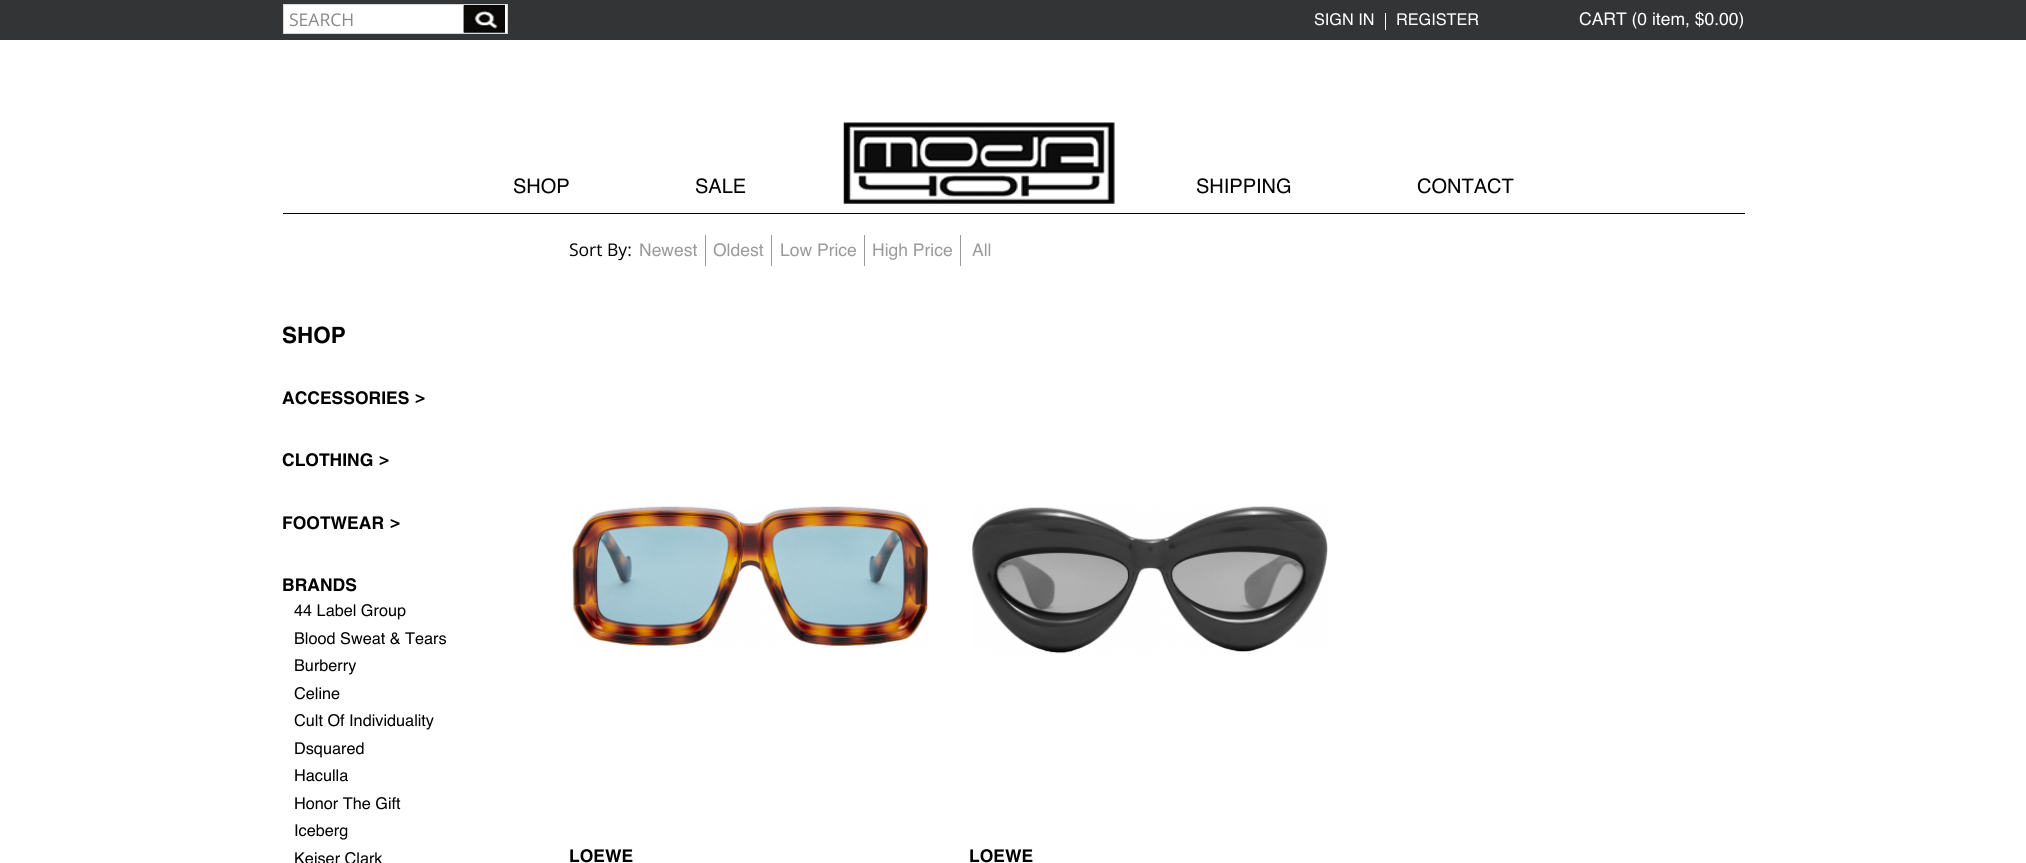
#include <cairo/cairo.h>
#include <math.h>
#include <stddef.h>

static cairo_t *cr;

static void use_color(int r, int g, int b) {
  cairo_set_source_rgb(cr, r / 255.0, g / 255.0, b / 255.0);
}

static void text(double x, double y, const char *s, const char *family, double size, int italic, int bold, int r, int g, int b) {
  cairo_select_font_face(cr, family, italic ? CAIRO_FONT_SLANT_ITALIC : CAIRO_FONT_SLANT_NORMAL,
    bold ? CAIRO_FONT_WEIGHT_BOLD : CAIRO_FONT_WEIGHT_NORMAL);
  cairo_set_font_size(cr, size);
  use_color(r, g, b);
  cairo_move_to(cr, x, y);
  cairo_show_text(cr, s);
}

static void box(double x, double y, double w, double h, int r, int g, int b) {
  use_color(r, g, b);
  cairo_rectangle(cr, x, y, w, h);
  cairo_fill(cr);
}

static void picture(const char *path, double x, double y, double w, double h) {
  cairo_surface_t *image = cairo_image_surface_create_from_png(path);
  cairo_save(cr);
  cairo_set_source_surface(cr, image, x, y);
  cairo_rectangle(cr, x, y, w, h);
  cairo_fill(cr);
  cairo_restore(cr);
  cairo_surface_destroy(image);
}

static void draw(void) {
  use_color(255, 255, 255);
  cairo_paint(cr);
  box(0, 0, 2026, 40, 51, 52, 54);
  use_color(255, 255, 255);
  cairo_rectangle(cr, 283.5, 4.5, 224, 29);
  cairo_fill_preserve(cr);
  use_color(215, 215, 215);
  cairo_set_line_width(cr, 1);
  cairo_stroke(cr);
  picture("img_01.png", 463, 5, 42, 28);
  picture("img_02.png", 463, 6, 42, 27);
  picture("img_03.png", 843, 122, 272, 82);
  box(1385, 13, 1, 17, 255, 255, 255);
  box(283, 213, 1462, 1, 0, 0, 0);
  box(705, 235, 1, 31, 154, 154, 154);
  box(771, 235, 1, 31, 154, 154, 154);
  box(864, 235, 1, 31, 154, 154, 154);
  box(960, 235, 1, 31, 154, 154, 154);
  picture("img_04.png", 572, 506, 357, 140);
  picture("img_05.png", 972, 506, 356, 148);
  text(289, 26, "SEARCH", "Open Sans", 17.5, 0, 0, 136, 136, 136);
  text(1314, 25, "SIGN IN", "Helvetica", 16.25, 0, 0, 255, 255, 255);
  text(1396, 25, "REGISTER", "Helvetica", 16.25, 0, 0, 255, 255, 255);
  text(1579, 25, "CART (0 item, $0.00)", "Helvetica", 17.5, 0, 0, 255, 255, 255);
  text(513, 193, "SHOP", "Helvetica", 20, 0, 0, 0, 0, 0);
  text(695, 193, "SALE", "Helvetica", 20, 0, 0, 0, 0, 0);
  text(1196, 193, "SHIPPING", "Helvetica", 20, 0, 0, 0, 0, 0);
  text(1417, 193, "CONTACT", "Helvetica", 20, 0, 0, 0, 0, 0);
  text(569, 256, "Sort By:", "Open Sans", 17.5, 0, 0, 0, 0, 0);
  text(639, 256, "Newest", "Helvetica", 17.5, 0, 0, 154, 154, 154);
  text(713, 256, "Oldest", "Helvetica", 17.5, 0, 0, 154, 154, 154);
  text(780, 256, "Low Price", "Helvetica", 17.5, 0, 0, 154, 154, 154);
  text(872, 256, "High Price", "Helvetica", 17.5, 0, 0, 154, 154, 154);
  text(972, 256, "All", "Helvetica", 17.5, 0, 0, 154, 154, 154);
  text(282, 343, "SHOP", "Helvetica", 22.5, 0, 1, 0, 0, 0);
  text(282, 404, "ACCESSORIES", "Helvetica", 17.5, 0, 1, 0, 0, 0);
  text(415, 403, ">", "Helvetica", 17.5, 0, 1, 0, 0, 0);
  text(282, 466, "CLOTHING", "Helvetica", 17.5, 0, 1, 0, 0, 0);
  text(379, 465, ">", "Helvetica", 17.5, 0, 1, 0, 0, 0);
  text(282, 529, "FOOTWEAR", "Helvetica", 17.5, 0, 1, 0, 0, 0);
  text(390, 528, ">", "Helvetica", 17.5, 0, 1, 0, 0, 0);
  text(282, 591, "BRANDS", "Helvetica", 17.5, 0, 1, 0, 0, 0);
  text(294, 616, "44 Label Group", "Helvetica", 16.25, 0, 0, 0, 0, 0);
  text(294, 644, "Blood Sweat & Tears", "Helvetica", 16.25, 0, 0, 0, 0, 0);
  text(294, 671, "Burberry", "Helvetica", 16.25, 0, 0, 0, 0, 0);
  text(294, 699, "Celine", "Helvetica", 16.25, 0, 0, 0, 0, 0);
  text(294, 726, "Cult Of Individuality", "Helvetica", 16.25, 0, 0, 0, 0, 0);
  text(294, 754, "Dsquared", "Helvetica", 16.25, 0, 0, 0, 0, 0);
  text(294, 781, "Haculla", "Helvetica", 16.25, 0, 0, 0, 0, 0);
  text(294, 809, "Honor The Gift", "Helvetica", 16.25, 0, 0, 0, 0, 0);
  text(294, 836, "Iceberg", "Helvetica", 16.25, 0, 0, 0, 0, 0);
  text(294, 864, "Keiser Clark", "Helvetica", 16.25, 0, 0, 0, 0, 0);
  text(569, 862, "LOEWE", "Helvetica", 17.5, 0, 1, 0, 0, 0);
  text(969, 862, "LOEWE", "Helvetica", 17.5, 0, 1, 0, 0, 0);
}

int main(void) {
  cairo_surface_t *surface = cairo_image_surface_create(CAIRO_FORMAT_RGB24, 2026, 863);
  cr = cairo_create(surface);
  cairo_font_options_t *options = cairo_font_options_create();
  cairo_font_options_set_hint_metrics(options, CAIRO_HINT_METRICS_OFF);
  cairo_font_options_set_hint_style(options, CAIRO_HINT_STYLE_NONE);
  cairo_set_font_options(cr, options);
  cairo_set_miter_limit(cr, 4);
  draw();
  cairo_surface_write_to_png(surface, "out.png");
  cairo_font_options_destroy(options);
  cairo_destroy(cr);
  cairo_surface_destroy(surface);
  return 0;
}
